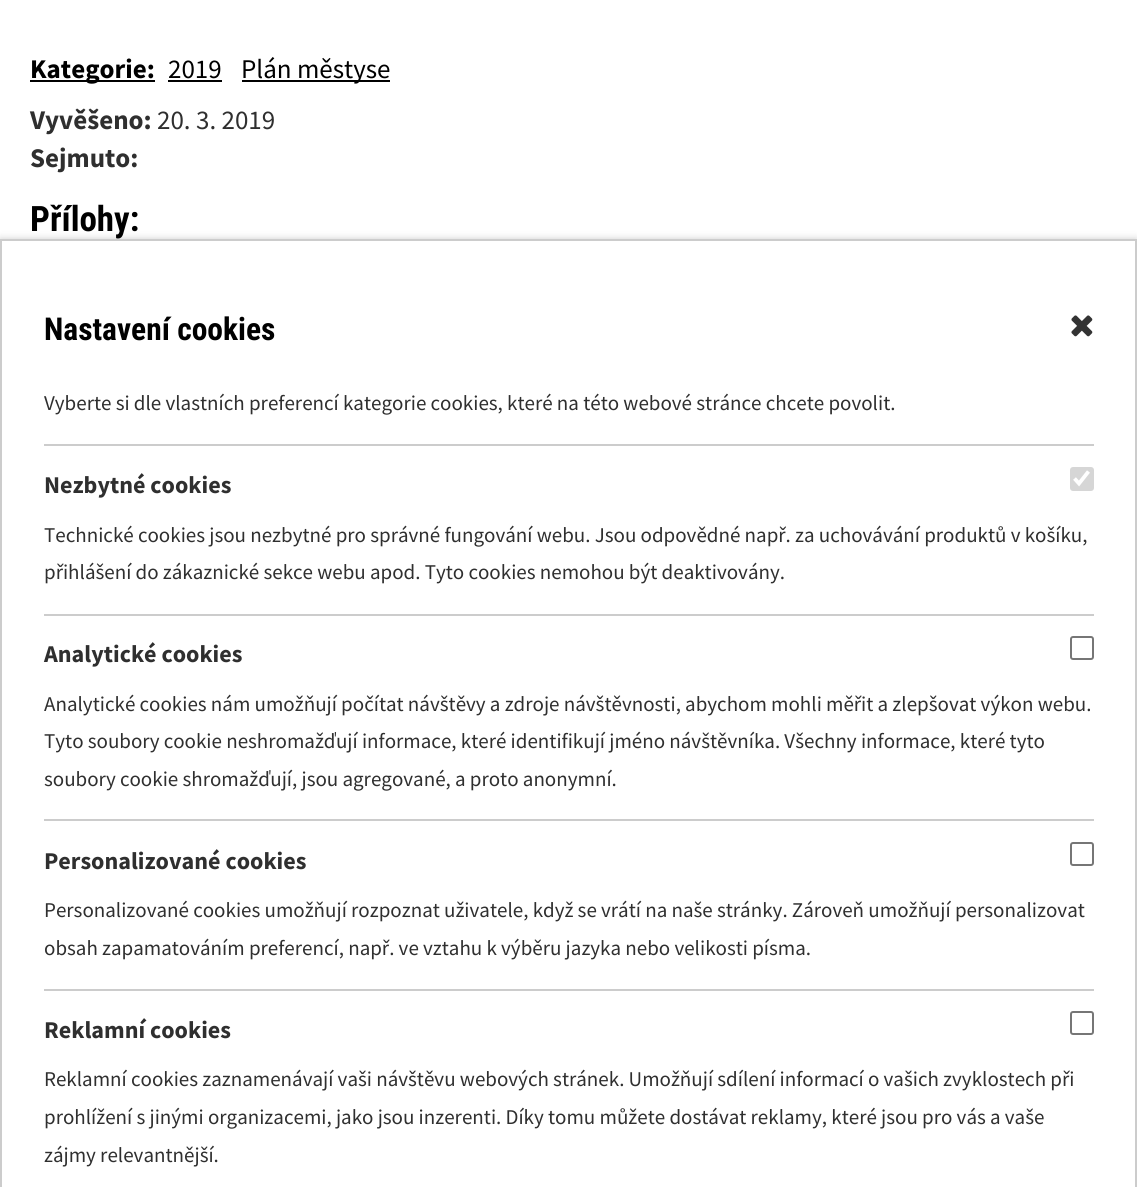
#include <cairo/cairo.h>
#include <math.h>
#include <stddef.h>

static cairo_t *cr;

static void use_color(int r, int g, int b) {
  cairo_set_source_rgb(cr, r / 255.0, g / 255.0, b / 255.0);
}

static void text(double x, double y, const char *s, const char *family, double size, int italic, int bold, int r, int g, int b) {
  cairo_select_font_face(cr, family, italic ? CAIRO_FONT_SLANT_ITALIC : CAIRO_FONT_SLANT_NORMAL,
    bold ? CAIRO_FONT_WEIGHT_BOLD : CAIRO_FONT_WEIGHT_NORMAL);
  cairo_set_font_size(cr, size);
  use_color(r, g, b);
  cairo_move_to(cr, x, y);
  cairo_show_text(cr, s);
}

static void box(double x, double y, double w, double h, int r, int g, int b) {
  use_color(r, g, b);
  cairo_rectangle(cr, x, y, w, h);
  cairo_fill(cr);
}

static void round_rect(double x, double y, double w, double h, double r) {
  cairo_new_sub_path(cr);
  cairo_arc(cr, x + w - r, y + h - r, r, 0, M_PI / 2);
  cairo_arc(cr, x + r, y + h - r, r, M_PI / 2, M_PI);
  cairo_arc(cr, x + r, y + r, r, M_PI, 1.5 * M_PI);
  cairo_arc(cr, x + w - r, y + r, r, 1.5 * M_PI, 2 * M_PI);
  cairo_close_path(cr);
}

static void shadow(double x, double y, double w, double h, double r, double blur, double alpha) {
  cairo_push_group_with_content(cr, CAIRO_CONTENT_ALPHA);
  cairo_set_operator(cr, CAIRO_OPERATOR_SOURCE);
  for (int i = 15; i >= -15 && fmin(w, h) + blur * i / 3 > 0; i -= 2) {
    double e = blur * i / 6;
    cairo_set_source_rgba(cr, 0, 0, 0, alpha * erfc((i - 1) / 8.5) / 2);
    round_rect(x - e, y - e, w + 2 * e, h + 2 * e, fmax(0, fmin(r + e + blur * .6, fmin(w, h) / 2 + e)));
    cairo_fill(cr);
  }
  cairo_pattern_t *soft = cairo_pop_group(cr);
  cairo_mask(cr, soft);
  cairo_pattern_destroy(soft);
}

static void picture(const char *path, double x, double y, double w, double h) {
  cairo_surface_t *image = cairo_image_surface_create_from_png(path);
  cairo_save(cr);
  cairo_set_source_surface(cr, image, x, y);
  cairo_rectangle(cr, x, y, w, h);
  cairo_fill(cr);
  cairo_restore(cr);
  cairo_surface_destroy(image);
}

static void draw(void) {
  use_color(255, 255, 255);
  cairo_paint(cr);
  box(30, 80, 125, 2, 0, 0, 0);
  box(168, 80, 54, 2, 0, 0, 0);
  box(242, 80, 148, 2, 0, 0, 0);
  use_color(0, 0, 0);
  shadow(0, 239, 1137, 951, 0, 4, 0.2);
  use_color(255, 255, 255);
  cairo_rectangle(cr, 1, 240, 1135, 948);
  cairo_fill_preserve(cr);
  use_color(204, 204, 204);
  cairo_stroke(cr);
  picture("img_01.png", 1071, 315, 22, 22);
  box(44, 444, 1050, 2, 204, 204, 204);
  use_color(214, 214, 214);
  round_rect(1070, 467, 24, 24, 3);
  cairo_fill(cr);
  cairo_new_path(cr);
  cairo_move_to(cr, 1074.5, 478.5);
  cairo_line_to(cr, 1079, 483.5);
  cairo_line_to(cr, 1088.5, 471.5);
  use_color(255, 255, 255);
  cairo_set_line_width(cr, 3.8);
  cairo_stroke(cr);
  box(44, 614, 1050, 2, 204, 204, 204);
  round_rect(1071, 637, 22, 22, 2);
  use_color(118, 118, 118);
  cairo_set_line_width(cr, 2);
  cairo_stroke(cr);
  box(44, 819, 1050, 2, 204, 204, 204);
  round_rect(1071, 843, 22, 22, 2);
  use_color(118, 118, 118);
  cairo_stroke(cr);
  box(44, 989, 1050, 2, 204, 204, 204);
  round_rect(1071, 1012, 22, 22, 2);
  use_color(118, 118, 118);
  cairo_stroke(cr);
  text(30, 78, "Kategorie:", "Source Sans Pro", 27, 0, 1, 0, 0, 0);
  text(168, 78, "2019", "Source Sans Pro", 27, 0, 0, 0, 0, 0);
  text(241, 78, "Plán městyse", "Source Sans Pro", 27, 0, 0, 0, 0, 0);
  text(30, 129, "Vyvěšeno:", "Source Sans Pro", 27, 0, 1, 47, 47, 47);
  text(157, 129, "20. 3. 2019", "Source Sans Pro", 27, 0, 0, 47, 47, 47);
  text(30, 167, "Sejmuto:", "Source Sans Pro", 27, 0, 1, 47, 47, 47);
  text(30, 231, "Přílohy:", "Roboto Condensed", 35, 0, 1, 0, 0, 0);
  text(44, 340, "Nastavení cookies", "Roboto Condensed", 31.5, 0, 1, 0, 0, 0);
  text(44, 410, "Vyberte si dle vlastních preferencí kategorie cookies, které na této webové stránce chcete povolit.", "Source Sans Pro", 21, 0, 0, 47, 47, 47);
  text(44, 493, "Nezbytné cookies", "Source Sans Pro", 24.1, 0, 1, 47, 47, 47);
  text(44, 542, "Technické cookies jsou nezbytné pro správné fungování webu. Jsou odpovědné např. za uchovávání produktů v košíku,", "Source Sans Pro", 21, 0, 0, 47, 47, 47);
  text(44, 579, "přihlášení do zákaznické sekce webu apod. Tyto cookies nemohou být deaktivovány.", "Source Sans Pro", 21, 0, 0, 47, 47, 47);
  text(44, 662, "Analytické cookies", "Source Sans Pro", 24.1, 0, 1, 47, 47, 47);
  text(44, 711, "Analytické cookies nám umožňují počítat návštěvy a zdroje návštěvnosti, abychom mohli měřit a zlepšovat výkon webu.", "Source Sans Pro", 21, 0, 0, 47, 47, 47);
  text(44, 748, "Tyto soubory cookie neshromažďují informace, které identifikují jméno návštěvníka. Všechny informace, které tyto", "Source Sans Pro", 21, 0, 0, 47, 47, 47);
  text(44, 786, "soubory cookie shromažďují, jsou agregované, a proto anonymní.", "Source Sans Pro", 21, 0, 0, 47, 47, 47);
  text(44, 869, "Personalizované cookies", "Source Sans Pro", 24.1, 0, 1, 47, 47, 47);
  text(44, 917, "Personalizované cookies umožňují rozpoznat uživatele, když se vrátí na naše stránky. Zároveň umožňují personalizovat", "Source Sans Pro", 21, 0, 0, 47, 47, 47);
  text(44, 955, "obsah zapamatováním preferencí, např. ve vztahu k výběru jazyka nebo velikosti písma.", "Source Sans Pro", 21, 0, 0, 47, 47, 47);
  text(44, 1038, "Reklamní cookies", "Source Sans Pro", 24.1, 0, 1, 47, 47, 47);
  text(44, 1086, "Reklamní cookies zaznamenávají vaši návštěvu webových stránek. Umožňují sdílení informací o vašich zvyklostech při", "Source Sans Pro", 21, 0, 0, 47, 47, 47);
  text(44, 1124, "prohlížení s jinými organizacemi, jako jsou inzerenti. Díky tomu můžete dostávat reklamy, které jsou pro vás a vaše", "Source Sans Pro", 21, 0, 0, 47, 47, 47);
  text(44, 1162, "zájmy relevantnější.", "Source Sans Pro", 21, 0, 0, 47, 47, 47);
}

int main(void) {
  cairo_surface_t *surface = cairo_image_surface_create(CAIRO_FORMAT_RGB24, 1137, 1187);
  cr = cairo_create(surface);
  cairo_font_options_t *options = cairo_font_options_create();
  cairo_font_options_set_hint_metrics(options, CAIRO_HINT_METRICS_OFF);
  cairo_font_options_set_hint_style(options, CAIRO_HINT_STYLE_NONE);
  cairo_set_font_options(cr, options);
  cairo_set_miter_limit(cr, 4);
  draw();
  cairo_surface_write_to_png(surface, "out.png");
  cairo_font_options_destroy(options);
  cairo_destroy(cr);
  cairo_surface_destroy(surface);
  return 0;
}
